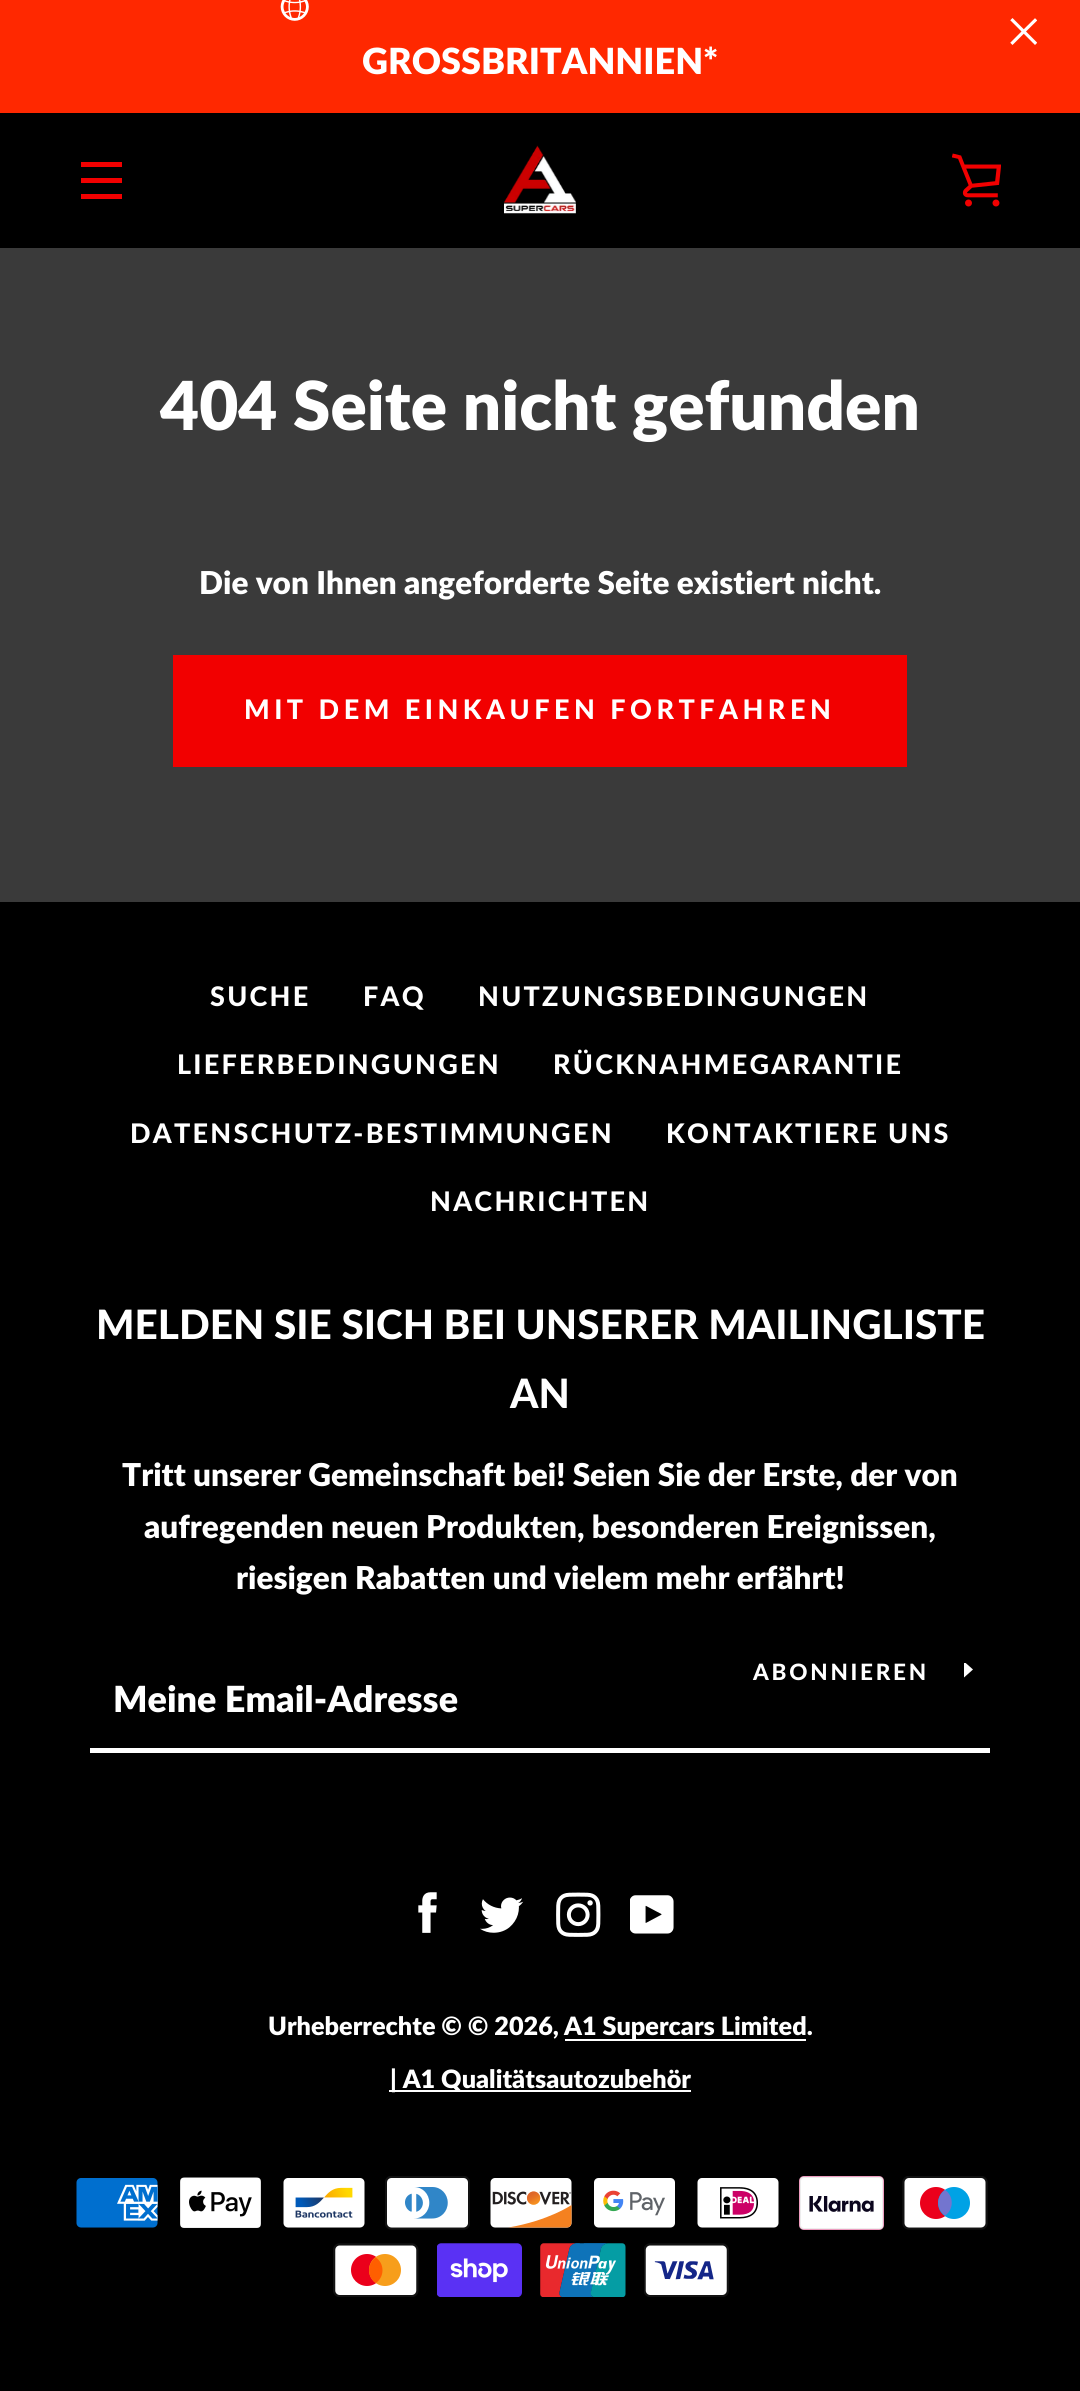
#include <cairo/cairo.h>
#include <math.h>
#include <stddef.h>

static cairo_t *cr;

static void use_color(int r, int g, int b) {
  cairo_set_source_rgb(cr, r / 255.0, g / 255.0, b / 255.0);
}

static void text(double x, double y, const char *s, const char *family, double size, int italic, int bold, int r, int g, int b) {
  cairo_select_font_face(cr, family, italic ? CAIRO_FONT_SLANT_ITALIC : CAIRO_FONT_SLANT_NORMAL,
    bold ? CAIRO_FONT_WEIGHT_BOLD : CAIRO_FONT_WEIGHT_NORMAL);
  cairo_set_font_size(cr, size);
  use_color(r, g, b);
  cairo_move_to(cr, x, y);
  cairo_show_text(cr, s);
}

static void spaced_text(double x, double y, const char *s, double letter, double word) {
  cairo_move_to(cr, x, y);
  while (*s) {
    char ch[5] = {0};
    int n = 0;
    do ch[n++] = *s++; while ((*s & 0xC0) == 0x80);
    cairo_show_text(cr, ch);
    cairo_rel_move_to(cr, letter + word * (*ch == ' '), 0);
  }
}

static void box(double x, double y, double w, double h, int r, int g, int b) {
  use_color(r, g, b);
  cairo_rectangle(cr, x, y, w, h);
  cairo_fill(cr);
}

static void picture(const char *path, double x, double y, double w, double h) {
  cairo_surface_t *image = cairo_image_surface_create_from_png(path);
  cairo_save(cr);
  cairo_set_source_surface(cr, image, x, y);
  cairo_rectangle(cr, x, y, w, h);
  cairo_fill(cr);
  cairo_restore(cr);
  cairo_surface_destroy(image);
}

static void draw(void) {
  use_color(0, 0, 0);
  cairo_paint(cr);
  box(0, 0, 1080, 113, 255, 40, 0);
  picture("img_01.png", 1010, 18, 27, 27);
  picture("img_02.png", 280, 0, 29, 21);
  box(81, 162, 41, 5, 242, 0, 0);
  box(81, 178, 41, 5, 242, 0, 0);
  box(81, 194, 41, 5, 242, 0, 0);
  picture("img_03.png", 504, 145, 72, 69);
  picture("img_04.png", 952, 153, 49, 54);
  box(0, 248, 1080, 654, 58, 58, 58);
  box(173, 655, 734, 112, 242, 0, 0);
  box(90, 1748, 900, 5, 255, 255, 255);
  cairo_save(cr);
  cairo_rectangle(cr, 929, 1663, 45, 16);
  cairo_clip(cr);
  cairo_new_path(cr);
  cairo_move_to(cr, 973, 1669.5);
  cairo_line_to(cr, 964, 1677.5);
  cairo_line_to(cr, 964, 1661.5);
  cairo_close_path(cr);
  cairo_fill(cr);
  cairo_restore(cr);
  picture("img_05.png", 418, 1892, 19, 41);
  picture("img_06.png", 480, 1897, 44, 36);
  picture("img_07.png", 556, 1892, 45, 45);
  picture("img_08.png", 630, 1895, 44, 39);
  box(565, 2039, 241, 2, 255, 255, 255);
  box(389, 2090, 302, 2, 255, 255, 255);
  picture("img_09.png", 76, 2178, 82, 50);
  picture("img_10.png", 180, 2177, 81, 51);
  picture("img_11.png", 283, 2178, 82, 50);
  picture("img_12.png", 385, 2176, 85, 54);
  picture("img_13.png", 490, 2178, 82, 50);
  picture("img_14.png", 594, 2178, 81, 50);
  picture("img_15.png", 697, 2178, 82, 50);
  picture("img_16.png", 799, 2176, 85, 54);
  picture("img_17.png", 902, 2176, 86, 54);
  picture("img_18.png", 333, 2243, 86, 54);
  picture("img_19.png", 437, 2243, 85, 54);
  picture("img_20.png", 540, 2243, 86, 54);
  picture("img_21.png", 644, 2243, 85, 54);
  text(362, 74, "GROSSBRITANNIEN*", "Lato ExtraBold", 36, 0, 0, 255, 255, 255);
  text(160, 430, "404 Seite nicht gefunden", "Lato ExtraBold", 67.5, 0, 0, 255, 255, 255);
  text(199, 594, "Die von Ihnen angeforderte Seite existiert nicht.", "Lato ExtraBold", 31.5, 0, 0, 255, 255, 255);
  cairo_select_font_face(cr, "Lato Black", CAIRO_FONT_SLANT_NORMAL, CAIRO_FONT_WEIGHT_NORMAL);
  cairo_set_font_size(cr, 27);
  spaced_text(244, 719, "MIT DEM EINKAUFEN FORTFAHREN", 4.5, 0);
  spaced_text(210, 1006, "SUCHE", 2.25, 0);
  spaced_text(363, 1006, "FAQ", 2.25, 0);
  spaced_text(478, 1006, "NUTZUNGSBEDINGUNGEN", 2.25, 0);
  spaced_text(177, 1074, "LIEFERBEDINGUNGEN", 2.25, 0);
  spaced_text(553, 1074, "RÜCKNAHMEGARANTIE", 2.25, 0);
  spaced_text(130, 1143, "DATENSCHUTZ-BESTIMMUNGEN", 2.25, 0);
  spaced_text(666, 1143, "KONTAKTIERE UNS", 2.25, 0);
  spaced_text(430, 1211, "NACHRICHTEN", 2.25, 0);
  text(96, 1339, "MELDEN SIE SICH BEI UNSERER MAILINGLISTE", "Lato Black", 40.5, 0, 0, 255, 255, 255);
  text(510, 1408, "AN", "Lato Black", 40.5, 0, 0, 255, 255, 255);
  text(122, 1486, "Tritt unserer Gemeinschaft bei! Seien Sie der Erste, der von", "Lato ExtraBold", 31.5, 0, 0, 255, 255, 255);
  text(144, 1538, "aufregenden neuen Produkten, besonderen Ereignissen,", "Lato ExtraBold", 31.5, 0, 0, 255, 255, 255);
  text(236, 1589, "riesigen Rabatten und vielem mehr erfährt!", "Lato ExtraBold", 31.5, 0, 0, 255, 255, 255);
  cairo_select_font_face(cr, "Lato Black", CAIRO_FONT_SLANT_NORMAL, CAIRO_FONT_WEIGHT_NORMAL);
  cairo_set_font_size(cr, 22.5);
  spaced_text(753, 1680, "ABONNIEREN", 2.75, 0);
  text(113, 1712, "Meine Email-Adresse", "Lato ExtraBold", 36, 0, 0, 255, 255, 255);
  text(268, 2035, "Urheberrechte © © 2026,", "Lato ExtraBold", 25.25, 0, 0, 255, 255, 255);
  text(564, 2035, "A1 Supercars Limited.", "Lato ExtraBold", 25.25, 0, 0, 255, 255, 255);
  text(390, 2088, "| A1 Qualitätsautozubehör", "Lato ExtraBold", 25.25, 0, 0, 255, 255, 255);
}

int main(void) {
  cairo_surface_t *surface = cairo_image_surface_create(CAIRO_FORMAT_RGB24, 1080, 2391);
  cr = cairo_create(surface);
  cairo_font_options_t *options = cairo_font_options_create();
  cairo_font_options_set_hint_metrics(options, CAIRO_HINT_METRICS_OFF);
  cairo_font_options_set_hint_style(options, CAIRO_HINT_STYLE_NONE);
  cairo_set_font_options(cr, options);
  cairo_set_miter_limit(cr, 4);
  draw();
  cairo_surface_write_to_png(surface, "out.png");
  cairo_font_options_destroy(options);
  cairo_destroy(cr);
  cairo_surface_destroy(surface);
  return 0;
}
